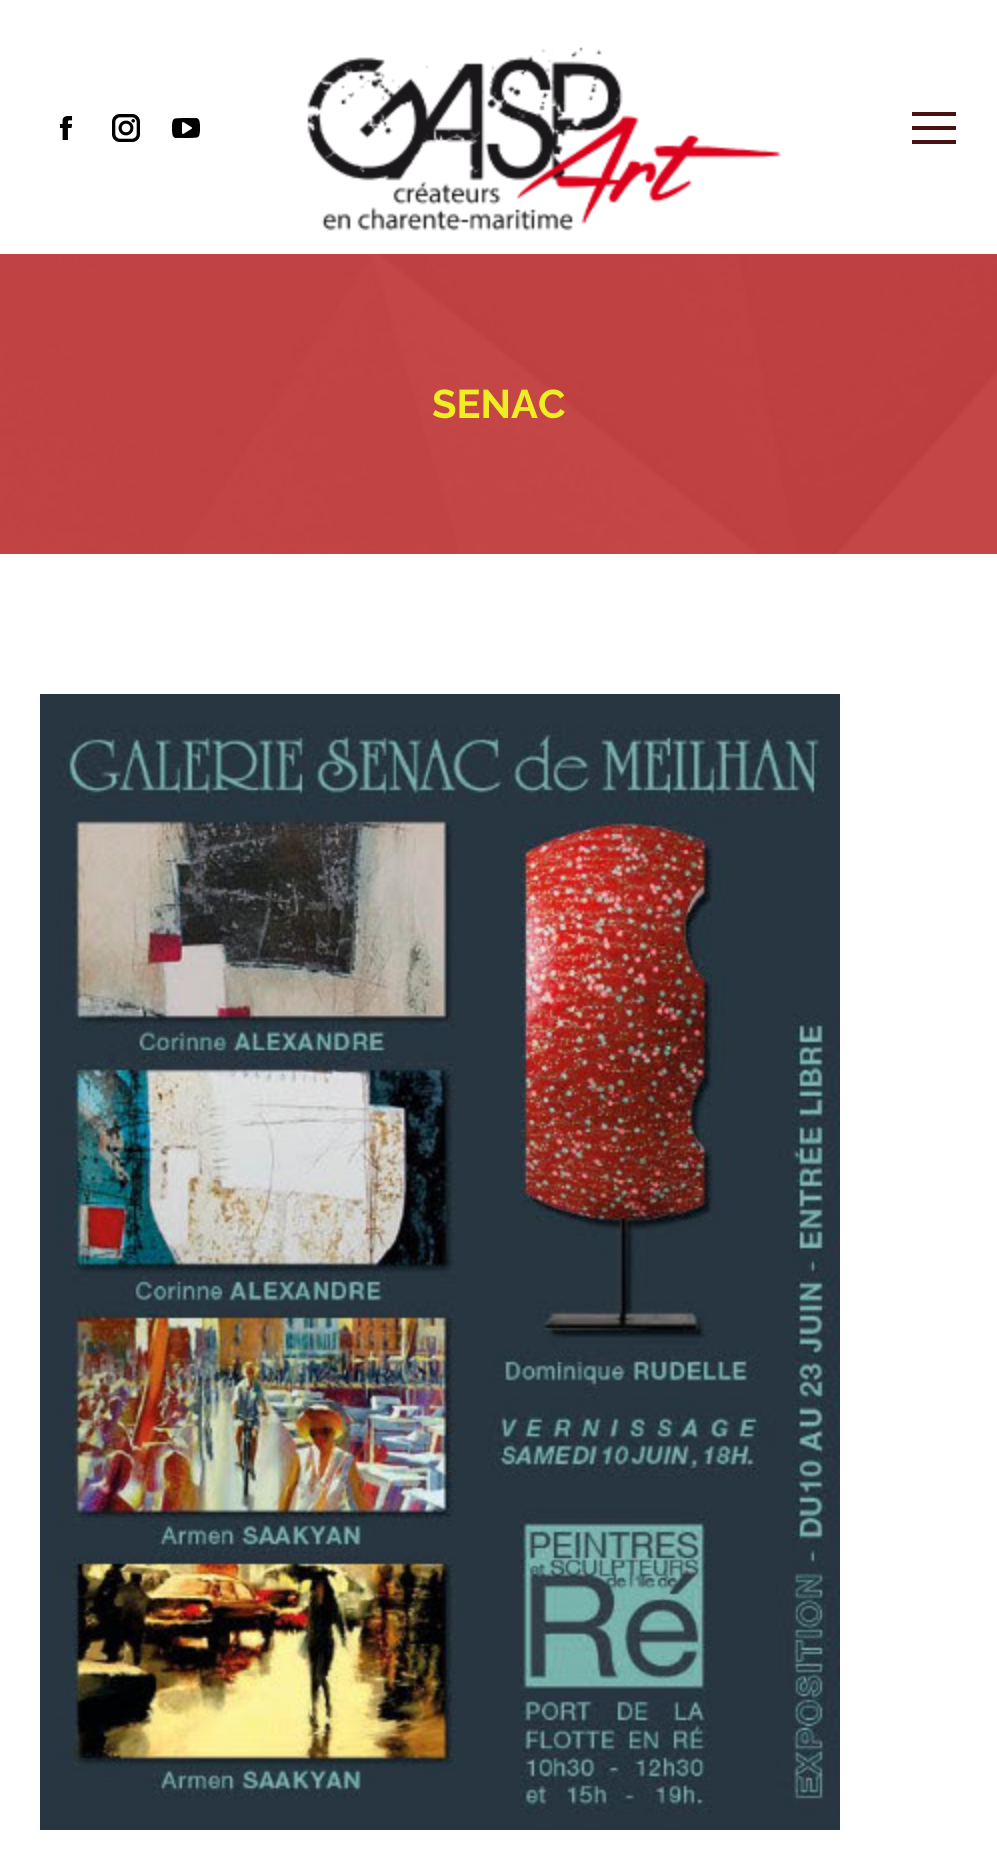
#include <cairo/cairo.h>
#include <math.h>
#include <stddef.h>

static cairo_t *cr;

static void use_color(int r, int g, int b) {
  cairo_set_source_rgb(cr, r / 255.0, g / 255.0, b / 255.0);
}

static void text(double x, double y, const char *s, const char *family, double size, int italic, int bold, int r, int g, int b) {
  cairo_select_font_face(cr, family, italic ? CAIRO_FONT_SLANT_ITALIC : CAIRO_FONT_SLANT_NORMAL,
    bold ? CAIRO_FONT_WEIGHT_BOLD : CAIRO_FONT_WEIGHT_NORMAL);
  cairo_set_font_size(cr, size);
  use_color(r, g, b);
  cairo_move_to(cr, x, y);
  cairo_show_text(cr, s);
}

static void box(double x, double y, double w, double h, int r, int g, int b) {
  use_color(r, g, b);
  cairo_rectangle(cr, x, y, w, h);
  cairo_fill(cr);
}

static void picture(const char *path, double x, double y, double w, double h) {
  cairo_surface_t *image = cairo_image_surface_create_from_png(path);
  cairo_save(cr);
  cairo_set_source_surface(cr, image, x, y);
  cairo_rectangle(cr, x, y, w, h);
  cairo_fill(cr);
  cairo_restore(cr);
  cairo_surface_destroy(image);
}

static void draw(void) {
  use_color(255, 255, 255);
  cairo_paint(cr);
  picture("img_01.png", 59, 116, 14, 24);
  picture("img_02.png", 112, 114, 28, 28);
  picture("img_03.png", 172, 118, 28, 20);
  picture("img_04.png", 307, 47, 474, 184);
  box(912, 112, 44, 4, 73, 17, 17);
  box(912, 126, 44, 4, 73, 17, 17);
  box(912, 140, 44, 4, 73, 17, 17);
  box(0, 254, 997, 300, 188, 43, 43);
  picture("img_05.png", 0, 254, 997, 300);
  picture("img_06.png", 40, 694, 800, 1136);
  text(432, 418, "SENAC", "Raleway", 40, 0, 1, 238, 238, 34);
}

int main(void) {
  cairo_surface_t *surface = cairo_image_surface_create(CAIRO_FORMAT_RGB24, 997, 1850);
  cr = cairo_create(surface);
  cairo_font_options_t *options = cairo_font_options_create();
  cairo_font_options_set_hint_metrics(options, CAIRO_HINT_METRICS_OFF);
  cairo_font_options_set_hint_style(options, CAIRO_HINT_STYLE_NONE);
  cairo_set_font_options(cr, options);
  cairo_set_miter_limit(cr, 4);
  draw();
  cairo_surface_write_to_png(surface, "out.png");
  cairo_font_options_destroy(options);
  cairo_destroy(cr);
  cairo_surface_destroy(surface);
  return 0;
}
